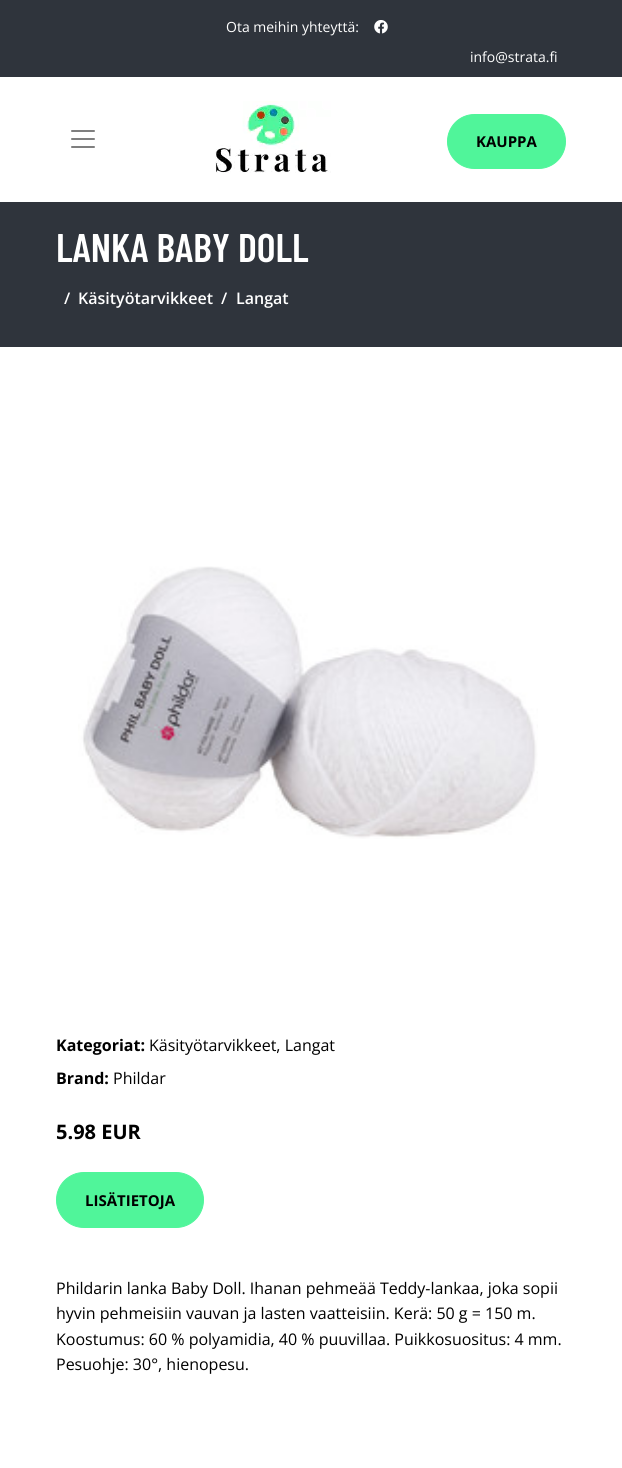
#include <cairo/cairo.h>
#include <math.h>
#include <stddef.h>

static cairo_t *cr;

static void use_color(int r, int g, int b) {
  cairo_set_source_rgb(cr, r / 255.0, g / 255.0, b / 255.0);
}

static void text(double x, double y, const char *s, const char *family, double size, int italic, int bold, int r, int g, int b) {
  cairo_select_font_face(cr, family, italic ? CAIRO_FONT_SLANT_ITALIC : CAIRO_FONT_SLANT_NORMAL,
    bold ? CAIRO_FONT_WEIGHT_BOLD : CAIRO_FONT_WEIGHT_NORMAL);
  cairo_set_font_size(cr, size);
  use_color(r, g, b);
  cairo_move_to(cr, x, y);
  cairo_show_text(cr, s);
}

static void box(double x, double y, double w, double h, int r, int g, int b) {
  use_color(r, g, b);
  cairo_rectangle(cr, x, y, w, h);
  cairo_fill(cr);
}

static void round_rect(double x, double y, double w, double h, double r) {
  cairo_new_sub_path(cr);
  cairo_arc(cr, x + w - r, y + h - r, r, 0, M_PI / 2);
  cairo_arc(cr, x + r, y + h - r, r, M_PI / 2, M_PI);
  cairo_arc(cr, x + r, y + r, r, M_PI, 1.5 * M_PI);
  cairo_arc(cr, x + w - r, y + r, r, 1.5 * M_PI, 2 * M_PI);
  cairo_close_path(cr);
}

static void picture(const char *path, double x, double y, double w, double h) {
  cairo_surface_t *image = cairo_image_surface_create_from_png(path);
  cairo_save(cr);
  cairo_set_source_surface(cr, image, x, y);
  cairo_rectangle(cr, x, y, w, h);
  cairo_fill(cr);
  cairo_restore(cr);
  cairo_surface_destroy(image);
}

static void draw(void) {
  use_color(255, 255, 255);
  cairo_paint(cr);
  box(0, 0, 622, 77, 47, 52, 60);
  picture("img_01.png", 374, 20, 14, 14);
  picture("img_02.png", 71, 130, 24, 18);
  picture("img_03.png", 215, 101, 116, 72);
  use_color(80, 245, 154);
  round_rect(447.5, 114.5, 118, 54, 27);
  cairo_fill_preserve(cr);
  cairo_set_line_width(cr, 1);
  cairo_stroke(cr);
  box(0, 202, 622, 145, 47, 52, 60);
  picture("img_04.png", 78, 566, 460, 273);
  use_color(80, 245, 154);
  round_rect(56.5, 1172.5, 147, 55, 27.5);
  cairo_fill_preserve(cr);
  cairo_stroke(cr);
  text(226, 32, "Ota meihin yhteyttä:", "Open Sans", 14, 0, 0, 255, 255, 255);
  text(470, 62, "info@strata.fi", "Open Sans", 14, 0, 0, 255, 255, 255);
  text(476, 147, "KAUPPA", "Open Sans", 15, 0, 1, 0, 0, 0);
  text(56, 262, "LANKA BABY DOLL", "Barlow Condensed SemiBold", 40, 0, 0, 255, 255, 255);
  text(64, 304, "/", "Open Sans SemiBold", 16, 0, 0, 255, 255, 255);
  text(78, 304, "Käsityötarvikkeet", "Open Sans SemiBold", 16, 0, 0, 255, 255, 255);
  text(221, 304, "/", "Open Sans SemiBold", 16, 0, 0, 255, 255, 255);
  text(236, 304, "Langat", "Open Sans SemiBold", 16, 0, 0, 255, 255, 255);
  text(56, 1051, "Kategoriat:", "Open Sans", 16, 0, 1, 0, 0, 0);
  text(149, 1051, "Käsityötarvikkeet, Langat", "Open Sans", 16, 0, 0, 0, 0, 0);
  text(56, 1084, "Brand:", "Open Sans", 16, 0, 1, 0, 0, 0);
  text(113, 1084, "Phildar", "Open Sans", 16, 0, 0, 0, 0, 0);
  text(56, 1139, "5.98 EUR", "Open Sans", 20, 0, 1, 0, 0, 0);
  text(85, 1206, "LISÄTIETOJA", "Open Sans", 15, 0, 1, 0, 0, 0);
  text(56, 1294, "Phildarin lanka Baby Doll. Ihanan pehmeää Teddy-lankaa, joka sopii", "Open Sans", 16, 0, 0, 0, 0, 0);
  text(56, 1319, "hyvin pehmeisiin vauvan ja lasten vaatteisiin. Kerä: 50 g = 150 m.", "Open Sans", 16, 0, 0, 0, 0, 0);
  text(56, 1345, "Koostumus: 60 % polyamidia, 40 % puuvillaa. Puikkosuositus: 4 mm.", "Open Sans", 16, 0, 0, 0, 0, 0);
  text(56, 1370, "Pesuohje: 30°, hienopesu.", "Open Sans", 16, 0, 0, 0, 0, 0);
}

int main(void) {
  cairo_surface_t *surface = cairo_image_surface_create(CAIRO_FORMAT_RGB24, 622, 1468);
  cr = cairo_create(surface);
  cairo_font_options_t *options = cairo_font_options_create();
  cairo_font_options_set_hint_metrics(options, CAIRO_HINT_METRICS_OFF);
  cairo_font_options_set_hint_style(options, CAIRO_HINT_STYLE_NONE);
  cairo_set_font_options(cr, options);
  cairo_set_miter_limit(cr, 4);
  draw();
  cairo_surface_write_to_png(surface, "out.png");
  cairo_font_options_destroy(options);
  cairo_destroy(cr);
  cairo_surface_destroy(surface);
  return 0;
}
